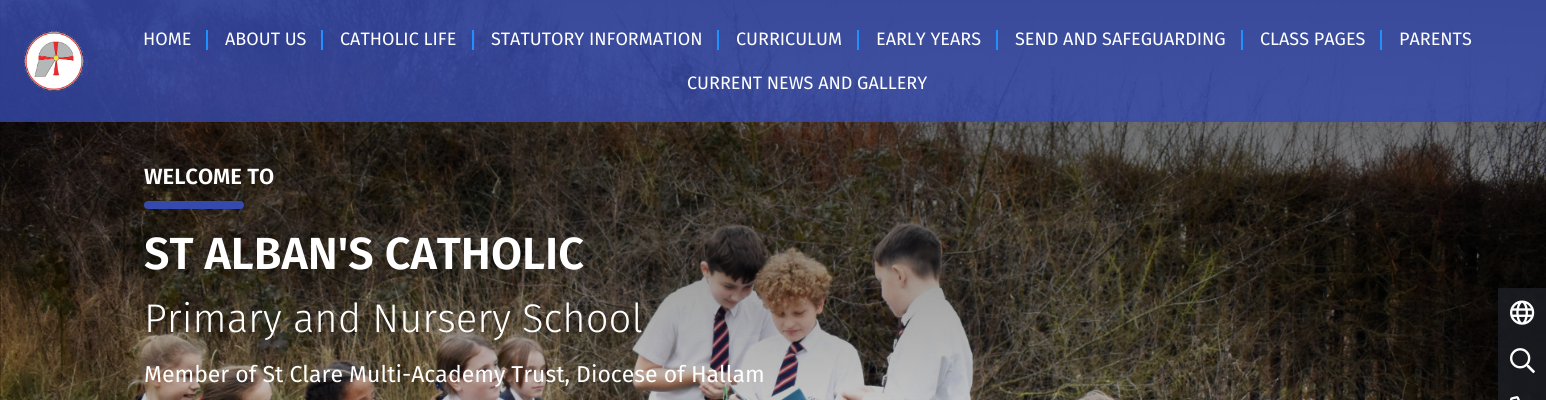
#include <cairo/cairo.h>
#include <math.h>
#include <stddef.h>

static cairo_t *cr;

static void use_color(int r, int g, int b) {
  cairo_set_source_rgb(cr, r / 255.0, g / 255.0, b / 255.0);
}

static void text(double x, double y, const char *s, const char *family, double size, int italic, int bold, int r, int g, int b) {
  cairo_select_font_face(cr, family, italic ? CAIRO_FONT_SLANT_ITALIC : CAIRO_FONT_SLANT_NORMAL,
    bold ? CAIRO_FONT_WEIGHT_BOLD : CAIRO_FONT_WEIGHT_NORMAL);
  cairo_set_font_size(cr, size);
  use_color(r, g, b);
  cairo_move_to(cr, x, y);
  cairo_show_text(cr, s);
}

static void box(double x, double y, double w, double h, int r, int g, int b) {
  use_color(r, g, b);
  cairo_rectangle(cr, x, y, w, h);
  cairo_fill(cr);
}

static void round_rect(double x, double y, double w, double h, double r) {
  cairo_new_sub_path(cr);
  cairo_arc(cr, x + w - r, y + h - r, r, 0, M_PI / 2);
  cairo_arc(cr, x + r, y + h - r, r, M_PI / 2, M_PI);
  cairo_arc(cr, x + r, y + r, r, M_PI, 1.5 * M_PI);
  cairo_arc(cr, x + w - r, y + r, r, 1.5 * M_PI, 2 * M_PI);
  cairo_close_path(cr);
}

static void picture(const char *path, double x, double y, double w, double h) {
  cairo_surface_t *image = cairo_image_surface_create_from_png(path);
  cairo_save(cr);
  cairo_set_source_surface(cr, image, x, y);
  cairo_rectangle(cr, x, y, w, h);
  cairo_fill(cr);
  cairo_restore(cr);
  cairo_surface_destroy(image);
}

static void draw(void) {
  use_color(255, 255, 255);
  cairo_paint(cr);
  picture("img_02.png", 0, 0, 1546, 400);
  cairo_set_source_rgba(cr, 0.212, 0.29, 0.682, 0.8);
  cairo_rectangle(cr, 0, 0, 1546, 122);
  cairo_fill(cr);
  picture("img_01.png", 24, 31, 60, 60);
  box(206, 30, 2, 20, 30, 144, 255);
  box(321, 30, 2, 20, 30, 144, 255);
  box(472, 30, 2, 20, 30, 144, 255);
  box(717, 30, 2, 20, 30, 144, 255);
  box(857, 30, 2, 20, 30, 144, 255);
  box(996, 30, 2, 20, 30, 144, 255);
  box(1241, 30, 2, 20, 30, 144, 255);
  box(1380, 30, 2, 20, 30, 144, 255);
  use_color(54, 74, 174);
  round_rect(144, 201, 100, 8, 4);
  cairo_fill(cr);
  cairo_set_source_rgba(cr, 0.11, 0.118, 0.145, 0.8);
  cairo_rectangle(cr, 1498, 288, 48, 48);
  cairo_fill(cr);
  picture("img_03.png", 1510, 300, 25, 25);
  cairo_rectangle(cr, 1498, 336, 48, 48);
  cairo_fill(cr);
  picture("img_04.png", 1510, 348, 25, 26);
  cairo_rectangle(cr, 1498, 384, 48, 16);
  cairo_fill(cr);
  picture("img_05.png", 1510, 396, 10, 4);
  text(143, 45, "HOME", "Fira Sans", 18, 0, 0, 255, 255, 255);
  text(225, 45, "ABOUT US", "Fira Sans", 18, 0, 0, 255, 255, 255);
  text(340, 45, "CATHOLIC LIFE", "Fira Sans", 18, 0, 0, 255, 255, 255);
  text(491, 45, "STATUTORY INFORMATION", "Fira Sans", 18, 0, 0, 255, 255, 255);
  text(736, 45, "CURRICULUM", "Fira Sans", 18, 0, 0, 255, 255, 255);
  text(876, 45, "EARLY YEARS", "Fira Sans", 18, 0, 0, 255, 255, 255);
  text(1015, 45, "SEND AND SAFEGUARDING", "Fira Sans", 18, 0, 0, 255, 255, 255);
  text(1260, 45, "CLASS PAGES", "Fira Sans", 18, 0, 0, 255, 255, 255);
  text(1399, 45, "PARENTS", "Fira Sans", 18, 0, 0, 255, 255, 255);
  text(687, 89, "CURRENT NEWS AND GALLERY", "Fira Sans", 18, 0, 0, 255, 255, 255);
  text(144, 184, "WELCOME TO", "Fira Sans SemiBold", 22, 0, 0, 255, 255, 255);
  text(144, 269, "ST ALBAN'S CATHOLIC", "Fira Sans SemiBold", 45, 0, 0, 255, 255, 255);
  text(144, 332, "Primary and Nursery School", "Fira Sans Light", 40, 0, 0, 255, 255, 255);
  text(144, 382, "Member of St Clare Multi-Academy Trust, Diocese of Hallam", "Fira Sans", 23, 0, 0, 255, 255, 255);
}

int main(void) {
  cairo_surface_t *surface = cairo_image_surface_create(CAIRO_FORMAT_RGB24, 1546, 400);
  cr = cairo_create(surface);
  cairo_font_options_t *options = cairo_font_options_create();
  cairo_font_options_set_hint_metrics(options, CAIRO_HINT_METRICS_OFF);
  cairo_font_options_set_hint_style(options, CAIRO_HINT_STYLE_NONE);
  cairo_set_font_options(cr, options);
  cairo_set_miter_limit(cr, 4);
  draw();
  cairo_surface_write_to_png(surface, "out.png");
  cairo_font_options_destroy(options);
  cairo_destroy(cr);
  cairo_surface_destroy(surface);
  return 0;
}
